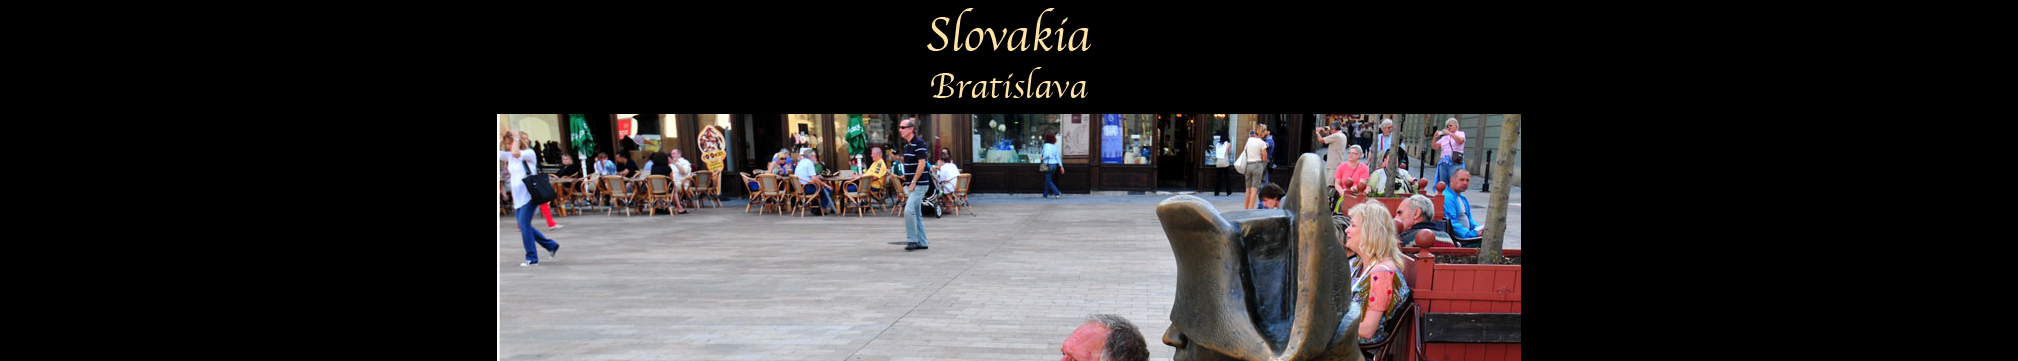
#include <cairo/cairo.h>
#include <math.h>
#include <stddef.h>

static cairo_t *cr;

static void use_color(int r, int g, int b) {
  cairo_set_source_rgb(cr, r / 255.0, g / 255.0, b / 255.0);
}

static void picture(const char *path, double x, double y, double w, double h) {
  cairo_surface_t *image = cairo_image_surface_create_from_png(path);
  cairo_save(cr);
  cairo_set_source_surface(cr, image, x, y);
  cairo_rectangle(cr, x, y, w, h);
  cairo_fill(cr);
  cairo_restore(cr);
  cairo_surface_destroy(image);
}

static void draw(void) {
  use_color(0, 0, 0);
  cairo_paint(cr);
  picture("img_01.png", 927, 8, 164, 43);
  picture("img_02.png", 931, 67, 157, 31);
  picture("img_03.png", 497, 114, 1024, 247);
}

int main(void) {
  cairo_surface_t *surface = cairo_image_surface_create(CAIRO_FORMAT_RGB24, 2018, 361);
  cr = cairo_create(surface);
  cairo_font_options_t *options = cairo_font_options_create();
  cairo_font_options_set_hint_metrics(options, CAIRO_HINT_METRICS_OFF);
  cairo_font_options_set_hint_style(options, CAIRO_HINT_STYLE_NONE);
  cairo_set_font_options(cr, options);
  cairo_set_miter_limit(cr, 4);
  draw();
  cairo_surface_write_to_png(surface, "out.png");
  cairo_font_options_destroy(options);
  cairo_destroy(cr);
  cairo_surface_destroy(surface);
  return 0;
}
